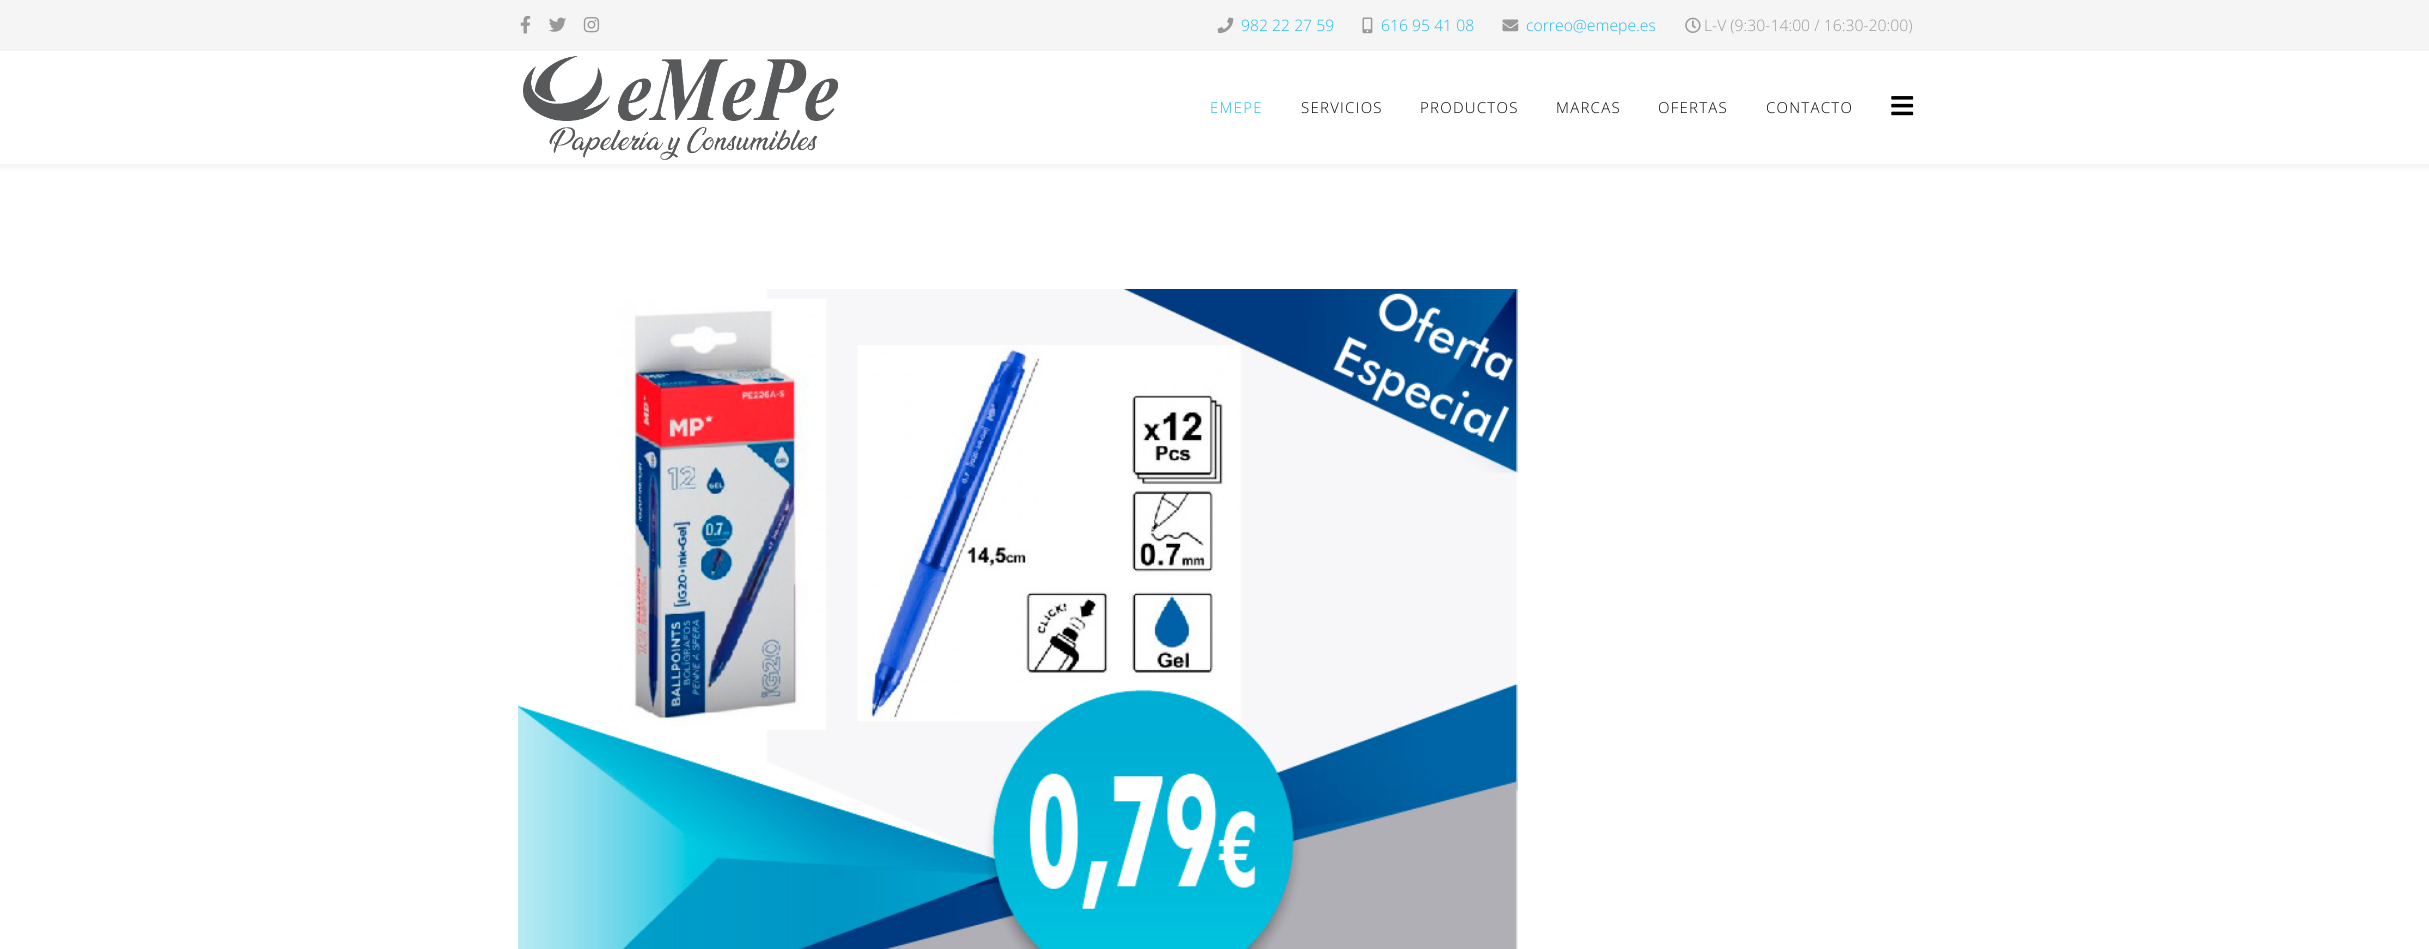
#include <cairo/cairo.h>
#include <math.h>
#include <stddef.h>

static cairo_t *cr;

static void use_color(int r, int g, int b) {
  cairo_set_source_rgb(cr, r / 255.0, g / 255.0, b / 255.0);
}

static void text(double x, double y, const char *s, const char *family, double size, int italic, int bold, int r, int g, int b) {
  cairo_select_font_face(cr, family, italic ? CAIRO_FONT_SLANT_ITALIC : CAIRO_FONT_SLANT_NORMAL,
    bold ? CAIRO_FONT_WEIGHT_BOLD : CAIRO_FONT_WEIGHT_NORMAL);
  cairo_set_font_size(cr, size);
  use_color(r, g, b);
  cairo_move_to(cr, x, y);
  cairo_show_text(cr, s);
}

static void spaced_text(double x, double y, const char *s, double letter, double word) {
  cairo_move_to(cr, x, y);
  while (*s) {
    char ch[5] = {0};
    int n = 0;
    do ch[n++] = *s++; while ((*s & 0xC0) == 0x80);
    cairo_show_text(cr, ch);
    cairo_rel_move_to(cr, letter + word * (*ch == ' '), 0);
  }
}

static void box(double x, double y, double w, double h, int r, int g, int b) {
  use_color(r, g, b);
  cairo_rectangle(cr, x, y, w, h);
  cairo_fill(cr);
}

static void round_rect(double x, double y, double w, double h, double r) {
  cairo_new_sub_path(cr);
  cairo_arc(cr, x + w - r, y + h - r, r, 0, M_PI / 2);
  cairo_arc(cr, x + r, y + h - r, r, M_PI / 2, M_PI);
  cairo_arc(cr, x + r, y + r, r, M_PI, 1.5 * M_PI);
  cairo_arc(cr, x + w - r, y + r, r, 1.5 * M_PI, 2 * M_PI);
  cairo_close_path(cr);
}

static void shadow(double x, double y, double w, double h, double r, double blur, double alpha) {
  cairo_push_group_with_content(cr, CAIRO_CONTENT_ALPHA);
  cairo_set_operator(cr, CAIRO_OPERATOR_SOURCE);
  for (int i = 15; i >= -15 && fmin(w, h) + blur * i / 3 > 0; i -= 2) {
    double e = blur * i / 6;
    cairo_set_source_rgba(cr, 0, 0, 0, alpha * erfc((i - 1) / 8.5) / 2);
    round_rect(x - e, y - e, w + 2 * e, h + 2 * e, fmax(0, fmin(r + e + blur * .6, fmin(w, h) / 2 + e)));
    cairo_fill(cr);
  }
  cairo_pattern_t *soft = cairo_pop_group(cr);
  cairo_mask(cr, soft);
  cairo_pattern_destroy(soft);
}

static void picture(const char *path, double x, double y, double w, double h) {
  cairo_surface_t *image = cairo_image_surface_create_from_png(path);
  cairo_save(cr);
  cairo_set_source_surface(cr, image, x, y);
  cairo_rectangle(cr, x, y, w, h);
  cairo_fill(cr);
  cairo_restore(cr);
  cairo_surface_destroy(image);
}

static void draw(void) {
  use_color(255, 255, 255);
  cairo_paint(cr);
  box(0, 0, 2429, 51, 245, 245, 245);
  picture("img_01.png", 520, 15, 11, 19);
  picture("img_02.png", 549, 17, 17, 15);
  picture("img_03.png", 583, 17, 17, 16);
  picture("img_04.png", 1217, 17, 17, 17);
  picture("img_05.png", 1362, 17, 11, 17);
  picture("img_06.png", 1502, 19, 17, 13);
  picture("img_07.png", 1685, 17, 16, 16);
  use_color(0, 0, 0);
  shadow(0, 55, 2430, 113, 0, 2, 0.05);
  box(0, 53, 2429, 111, 255, 255, 255);
  picture("img_08.png", 523, 56, 316, 104);
  picture("img_09.png", 1891, 96, 23, 20);
  picture("img_10.png", 518, 289, 1000, 660);
  text(1241, 31, "982 22 27 59", "Open Sans Light", 15.75, 0, 0, 34, 184, 240);
  text(1381, 31, "616 95 41 08", "Open Sans Light", 15.75, 0, 0, 34, 184, 240);
  text(1526, 31, "correo@emepe.es", "Open Sans Light", 15.75, 0, 0, 34, 184, 240);
  text(1704, 31, "L-V (9:30-14:00 / 16:30-20:00)", "Open Sans Light", 15.75, 0, 0, 153, 153, 153);
  cairo_set_font_size(cr, 15);
  use_color(34, 184, 240);
  spaced_text(1210, 113, "EMEPE", 1.25, 0);
  use_color(0, 0, 0);
  spaced_text(1301, 113, "SERVICIOS", 1.25, 0);
  spaced_text(1420, 113, "PRODUCTOS", 1.25, 0);
  spaced_text(1556, 113, "MARCAS", 1.25, 0);
  spaced_text(1658, 113, "OFERTAS", 1.25, 0);
  spaced_text(1766, 113, "CONTACTO", 1.25, 0);
}

int main(void) {
  cairo_surface_t *surface = cairo_image_surface_create(CAIRO_FORMAT_RGB24, 2429, 949);
  cr = cairo_create(surface);
  cairo_font_options_t *options = cairo_font_options_create();
  cairo_font_options_set_hint_metrics(options, CAIRO_HINT_METRICS_OFF);
  cairo_font_options_set_hint_style(options, CAIRO_HINT_STYLE_NONE);
  cairo_set_font_options(cr, options);
  cairo_set_miter_limit(cr, 4);
  draw();
  cairo_surface_write_to_png(surface, "out.png");
  cairo_font_options_destroy(options);
  cairo_destroy(cr);
  cairo_surface_destroy(surface);
  return 0;
}
